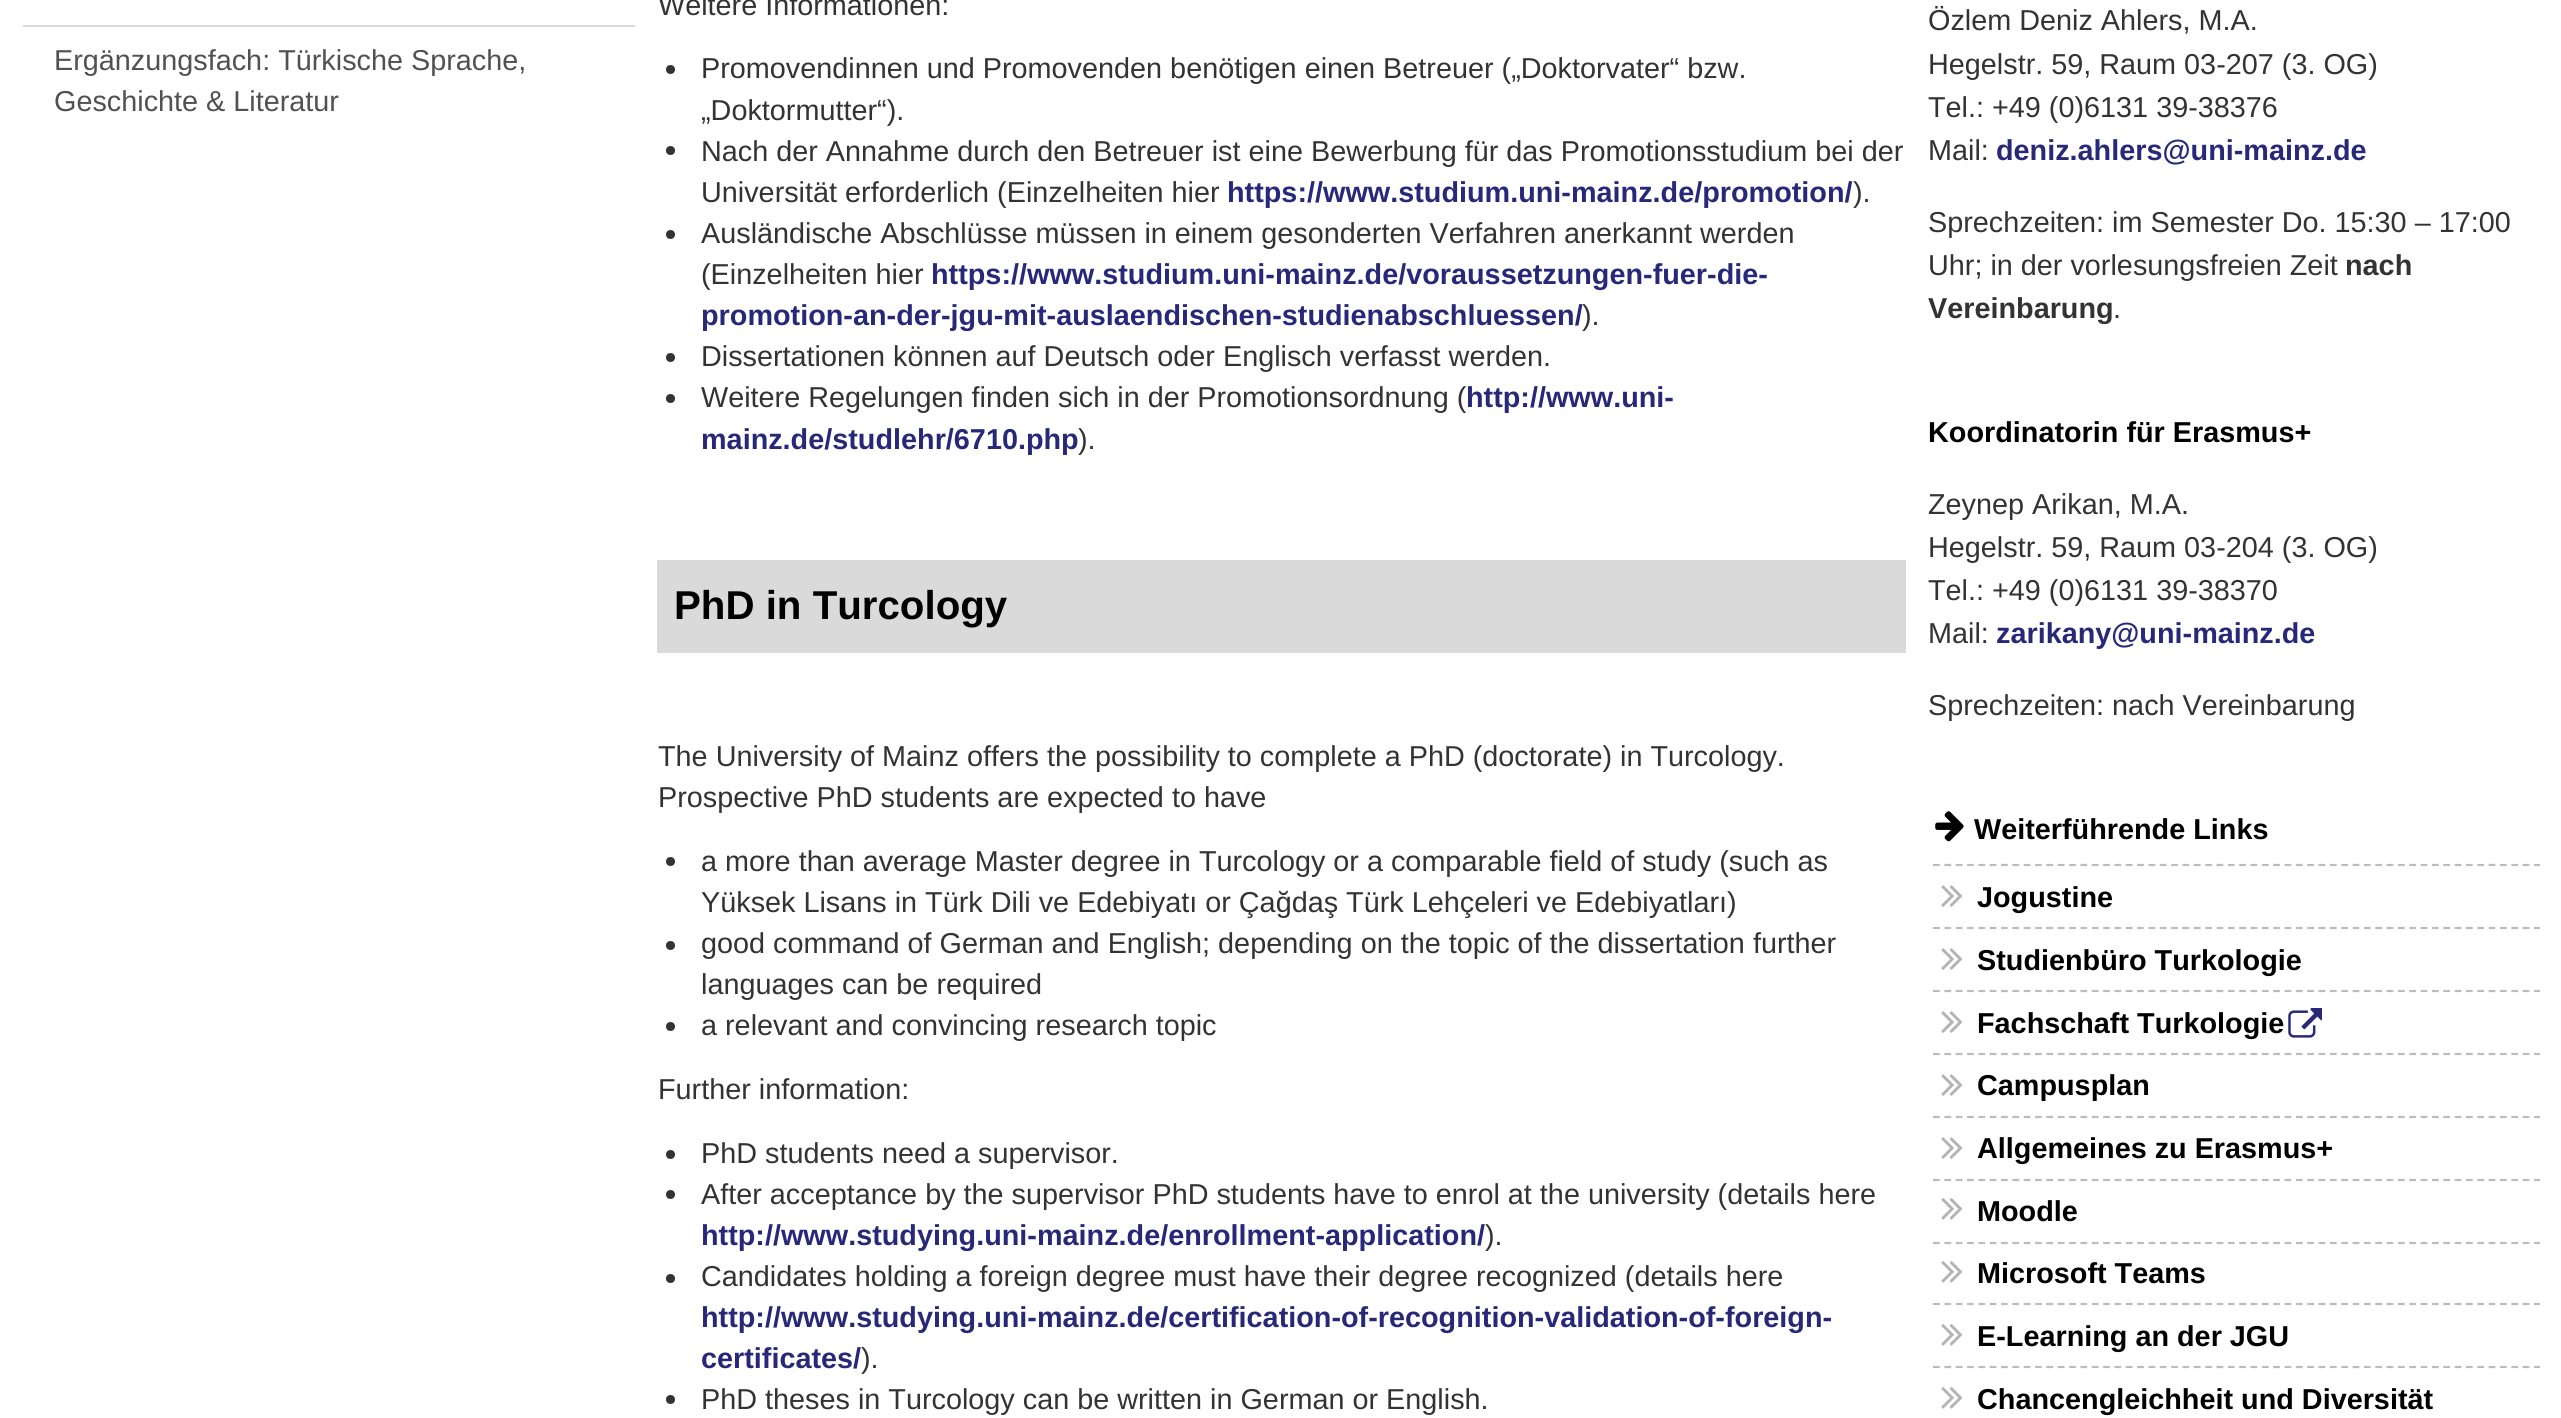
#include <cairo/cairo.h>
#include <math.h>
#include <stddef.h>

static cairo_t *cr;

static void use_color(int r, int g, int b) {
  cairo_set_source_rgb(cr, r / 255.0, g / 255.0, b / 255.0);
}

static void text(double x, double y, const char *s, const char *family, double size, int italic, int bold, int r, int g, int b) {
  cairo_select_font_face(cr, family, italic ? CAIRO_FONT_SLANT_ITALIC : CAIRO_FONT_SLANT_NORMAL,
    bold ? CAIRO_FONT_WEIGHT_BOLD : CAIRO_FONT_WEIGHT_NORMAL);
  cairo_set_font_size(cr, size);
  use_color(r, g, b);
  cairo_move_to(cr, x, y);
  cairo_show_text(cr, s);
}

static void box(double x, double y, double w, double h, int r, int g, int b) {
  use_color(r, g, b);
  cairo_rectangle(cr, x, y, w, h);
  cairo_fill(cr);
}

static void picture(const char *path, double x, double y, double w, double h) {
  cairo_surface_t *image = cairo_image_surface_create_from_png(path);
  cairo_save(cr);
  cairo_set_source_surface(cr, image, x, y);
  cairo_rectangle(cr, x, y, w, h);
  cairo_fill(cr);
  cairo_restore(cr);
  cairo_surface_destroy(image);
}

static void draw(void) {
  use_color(255, 255, 255);
  cairo_paint(cr);
  box(23, 25, 612, 2, 218, 218, 218);
  use_color(51, 51, 51);
  cairo_arc(cr, 670.5, 69.5, 4.5, 0, 2 * M_PI);
  cairo_fill(cr);
  cairo_arc(cr, 670.5, 150.5, 4.5, 0, 2 * M_PI);
  cairo_fill(cr);
  cairo_arc(cr, 670.5, 234.5, 4.5, 0, 2 * M_PI);
  cairo_fill(cr);
  cairo_arc(cr, 670.5, 357.5, 4.5, 0, 2 * M_PI);
  cairo_fill(cr);
  cairo_arc(cr, 670.5, 398.5, 4.5, 0, 2 * M_PI);
  cairo_fill(cr);
  box(657, 560, 1249, 93, 218, 218, 218);
  use_color(51, 51, 51);
  cairo_arc(cr, 670.5, 861.5, 4.5, 0, 2 * M_PI);
  cairo_fill(cr);
  cairo_arc(cr, 670.5, 945.5, 4.5, 0, 2 * M_PI);
  cairo_fill(cr);
  cairo_arc(cr, 670.5, 1026.5, 4.5, 0, 2 * M_PI);
  cairo_fill(cr);
  cairo_arc(cr, 670.5, 1154.5, 4.5, 0, 2 * M_PI);
  cairo_fill(cr);
  cairo_arc(cr, 670.5, 1194.5, 4.5, 0, 2 * M_PI);
  cairo_fill(cr);
  cairo_arc(cr, 670.5, 1278.5, 4.5, 0, 2 * M_PI);
  cairo_fill(cr);
  cairo_arc(cr, 670.5, 1399.5, 4.5, 0, 2 * M_PI);
  cairo_fill(cr);
  picture("img_01.png", 1935, 811, 29, 31);
  picture("img_02.png", 1941, 885, 22, 22);
  cairo_new_path(cr);
  cairo_move_to(cr, 1933, 865);
  cairo_line_to(cr, 2540, 865);
  use_color(188, 188, 188);
  cairo_set_line_width(cr, 2.2);
  cairo_set_dash(cr, (double[]){6.75, 4.59}, 2, 0);
  cairo_stroke(cr);
  cairo_new_path(cr);
  cairo_move_to(cr, 1933, 928);
  cairo_line_to(cr, 2540, 928);
  cairo_stroke(cr);
  picture("img_02.png", 1941, 948, 22, 22);
  cairo_new_path(cr);
  cairo_move_to(cr, 1933, 991);
  cairo_line_to(cr, 2540, 991);
  cairo_stroke(cr);
  picture("img_02.png", 1941, 1011, 22, 22);
  cairo_new_path(cr);
  cairo_move_to(cr, 1933, 1054);
  cairo_line_to(cr, 2540, 1054);
  cairo_stroke(cr);
  picture("img_03.png", 2288, 1008, 34, 30);
  picture("img_02.png", 1941, 1074, 22, 22);
  cairo_new_path(cr);
  cairo_move_to(cr, 1933, 1117);
  cairo_line_to(cr, 2540, 1117);
  cairo_stroke(cr);
  picture("img_02.png", 1941, 1137, 22, 22);
  cairo_new_path(cr);
  cairo_move_to(cr, 1933, 1180);
  cairo_line_to(cr, 2540, 1180);
  cairo_stroke(cr);
  picture("img_04.png", 1941, 1198, 22, 22);
  cairo_new_path(cr);
  cairo_move_to(cr, 1933, 1243);
  cairo_line_to(cr, 2540, 1243);
  cairo_stroke(cr);
  picture("img_04.png", 1941, 1261, 22, 22);
  cairo_new_path(cr);
  cairo_move_to(cr, 1933, 1304);
  cairo_line_to(cr, 2540, 1304);
  cairo_stroke(cr);
  picture("img_04.png", 1941, 1324, 22, 22);
  cairo_new_path(cr);
  cairo_move_to(cr, 1933, 1367);
  cairo_line_to(cr, 2540, 1367);
  cairo_stroke(cr);
  picture("img_04.png", 1941, 1387, 22, 22);
  text(54, 70, "Ergänzungsfach: Türkische Sprache,", "Liberation Sans", 28.8, 0, 0, 81, 81, 81);
  text(54, 111, "Geschichte & Literatur", "Liberation Sans", 28.8, 0, 0, 81, 81, 81);
  text(658, 15, "Weitere Informationen:", "Liberation Sans", 28.8, 0, 0, 51, 51, 51);
  text(701, 78, "Promovendinnen und Promovenden benötigen einen Betreuer („Doktorvater“ bzw.", "Liberation Sans", 28.8, 0, 0, 51, 51, 51);
  text(701, 120, "„Doktormutter“).", "Liberation Sans", 28.8, 0, 0, 51, 51, 51);
  text(701, 161, "Nach der Annahme durch den Betreuer ist eine Bewerbung für das Promotionsstudium bei der", "Liberation Sans", 28.8, 0, 0, 51, 51, 51);
  text(701, 202, "Universität erforderlich (Einzelheiten hier", "Liberation Sans", 28.8, 0, 0, 51, 51, 51);
  text(1227, 202, "https://www.studium.uni-mainz.de/promotion/", "Liberation Sans", 28.8, 0, 1, 40, 40, 121);
  text(1853, 202, ").", "Liberation Sans", 28.8, 0, 0, 51, 51, 51);
  text(701, 243, "Ausländische Abschlüsse müssen in einem gesonderten Verfahren anerkannt werden", "Liberation Sans", 28.8, 0, 0, 51, 51, 51);
  text(701, 284, "(Einzelheiten hier", "Liberation Sans", 28.8, 0, 0, 51, 51, 51);
  text(931, 284, "https://www.studium.uni-mainz.de/voraussetzungen-fuer-die-", "Liberation Sans", 28.8, 0, 1, 40, 40, 121);
  text(701, 325, "promotion-an-der-jgu-mit-auslaendischen-studienabschluessen/", "Liberation Sans", 28.8, 0, 1, 40, 40, 121);
  text(1582, 325, ").", "Liberation Sans", 28.8, 0, 0, 51, 51, 51);
  text(701, 366, "Dissertationen können auf Deutsch oder Englisch verfasst werden.", "Liberation Sans", 28.8, 0, 0, 51, 51, 51);
  text(701, 407, "Weitere Regelungen finden sich in der Promotionsordnung (", "Liberation Sans", 28.8, 0, 0, 51, 51, 51);
  text(1466, 407, "http://www.uni-", "Liberation Sans", 28.8, 0, 1, 40, 40, 121);
  text(701, 449, "mainz.de/studlehr/6710.php", "Liberation Sans", 28.8, 0, 1, 40, 40, 121);
  text(1078, 449, ").", "Liberation Sans", 28.8, 0, 0, 51, 51, 51);
  text(674, 619, "PhD in Turcology", "Liberation Sans", 40.25, 0, 1, 0, 0, 0);
  text(658, 766, "The University of Mainz offers the possibility to complete a PhD (doctorate) in Turcology.", "Liberation Sans", 28.8, 0, 0, 51, 51, 51);
  text(658, 807, "Prospective PhD students are expected to have", "Liberation Sans", 28.8, 0, 0, 51, 51, 51);
  text(701, 871, "a more than average Master degree in Turcology or a comparable field of study (such as", "Liberation Sans", 28.8, 0, 0, 51, 51, 51);
  text(701, 912, "Yüksek Lisans in Türk Dili ve Edebiyatı or Çağdaş Türk Lehçeleri ve Edebiyatları)", "Liberation Sans", 28.8, 0, 0, 51, 51, 51);
  text(701, 953, "good command of German and English; depending on the topic of the dissertation further", "Liberation Sans", 28.8, 0, 0, 51, 51, 51);
  text(701, 994, "languages can be required", "Liberation Sans", 28.8, 0, 0, 51, 51, 51);
  text(701, 1035, "a relevant and convincing research topic", "Liberation Sans", 28.8, 0, 0, 51, 51, 51);
  text(658, 1099, "Further information:", "Liberation Sans", 28.8, 0, 0, 51, 51, 51);
  text(701, 1163, "PhD students need a supervisor.", "Liberation Sans", 28.8, 0, 0, 51, 51, 51);
  text(701, 1204, "After acceptance by the supervisor PhD students have to enrol at the university (details here", "Liberation Sans", 28.8, 0, 0, 51, 51, 51);
  text(701, 1245, "http://www.studying.uni-mainz.de/enrollment-application/", "Liberation Sans", 28.8, 0, 1, 40, 40, 121);
  text(1485, 1245, ").", "Liberation Sans", 28.8, 0, 0, 51, 51, 51);
  text(701, 1286, "Candidates holding a foreign degree must have their degree recognized (details here", "Liberation Sans", 28.8, 0, 0, 51, 51, 51);
  text(701, 1327, "http://www.studying.uni-mainz.de/certification-of-recognition-validation-of-foreign-", "Liberation Sans", 28.8, 0, 1, 40, 40, 121);
  text(701, 1368, "certificates/", "Liberation Sans", 28.8, 0, 1, 40, 40, 121);
  text(861, 1368, ").", "Liberation Sans", 28.8, 0, 0, 51, 51, 51);
  text(701, 1409, "PhD theses in Turcology can be written in German or English.", "Liberation Sans", 28.8, 0, 0, 51, 51, 51);
  text(1928, 30, "Özlem Deniz Ahlers, M.A.", "Liberation Sans", 28.8, 0, 0, 51, 51, 51);
  text(1928, 74, "Hegelstr. 59, Raum 03-207 (3. OG)", "Liberation Sans", 28.8, 0, 0, 51, 51, 51);
  text(1928, 117, "Tel.: +49 (0)6131 39-38376", "Liberation Sans", 28.8, 0, 0, 51, 51, 51);
  text(1928, 160, "Mail:", "Liberation Sans", 28.8, 0, 0, 51, 51, 51);
  text(1996, 160, "deniz.ahlers@uni-mainz.de", "Liberation Sans", 28.8, 0, 1, 40, 40, 121);
  text(1928, 232, "Sprechzeiten: im Semester Do. 15:30 – 17:00", "Liberation Sans", 28.8, 0, 0, 51, 51, 51);
  text(1928, 275, "Uhr; in der vorlesungsfreien Zeit", "Liberation Sans", 28.8, 0, 0, 51, 51, 51);
  text(2345, 275, "nach", "Liberation Sans", 28.8, 0, 1, 51, 51, 51);
  text(1928, 318, "Vereinbarung", "Liberation Sans", 28.8, 0, 1, 51, 51, 51);
  text(2113, 318, ".", "Liberation Sans", 28.8, 0, 0, 51, 51, 51);
  text(1928, 442, "Koordinatorin für Erasmus+", "Liberation Sans", 28.8, 0, 1, 0, 0, 0);
  text(1928, 514, "Zeynep Arikan, M.A.", "Liberation Sans", 28.8, 0, 0, 51, 51, 51);
  text(1928, 557, "Hegelstr. 59, Raum 03-204 (3. OG)", "Liberation Sans", 28.8, 0, 0, 51, 51, 51);
  text(1928, 600, "Tel.: +49 (0)6131 39-38370", "Liberation Sans", 28.8, 0, 0, 51, 51, 51);
  text(1928, 643, "Mail:", "Liberation Sans", 28.8, 0, 0, 51, 51, 51);
  text(1996, 643, "zarikany@uni-mainz.de", "Liberation Sans", 28.8, 0, 1, 40, 40, 121);
  text(1928, 715, "Sprechzeiten: nach Vereinbarung", "Liberation Sans", 28.8, 0, 0, 51, 51, 51);
  text(1974, 839, "Weiterführende Links", "Liberation Sans", 28.8, 0, 1, 0, 0, 0);
  text(1977, 907, "Jogustine", "Liberation Sans", 28.8, 0, 1, 0, 0, 0);
  text(1977, 970, "Studienbüro Turkologie", "Liberation Sans", 28.8, 0, 1, 0, 0, 0);
  text(1977, 1033, "Fachschaft Turkologie", "Liberation Sans", 28.8, 0, 1, 0, 0, 0);
  text(1977, 1095, "Campusplan", "Liberation Sans", 28.8, 0, 1, 0, 0, 0);
  text(1977, 1158, "Allgemeines zu Erasmus+", "Liberation Sans", 28.8, 0, 1, 0, 0, 0);
  text(1977, 1221, "Moodle", "Liberation Sans", 28.8, 0, 1, 0, 0, 0);
  text(1977, 1283, "Microsoft Teams", "Liberation Sans", 28.8, 0, 1, 0, 0, 0);
  text(1977, 1346, "E-Learning an der JGU", "Liberation Sans", 28.8, 0, 1, 0, 0, 0);
  text(1977, 1409, "Chancengleichheit und Diversität", "Liberation Sans", 28.8, 0, 1, 0, 0, 0);
}

int main(void) {
  cairo_surface_t *surface = cairo_image_surface_create(CAIRO_FORMAT_RGB24, 2561, 1418);
  cr = cairo_create(surface);
  cairo_font_options_t *options = cairo_font_options_create();
  cairo_font_options_set_hint_metrics(options, CAIRO_HINT_METRICS_OFF);
  cairo_font_options_set_hint_style(options, CAIRO_HINT_STYLE_NONE);
  cairo_set_font_options(cr, options);
  cairo_set_miter_limit(cr, 4);
  draw();
  cairo_surface_write_to_png(surface, "out.png");
  cairo_font_options_destroy(options);
  cairo_destroy(cr);
  cairo_surface_destroy(surface);
  return 0;
}
